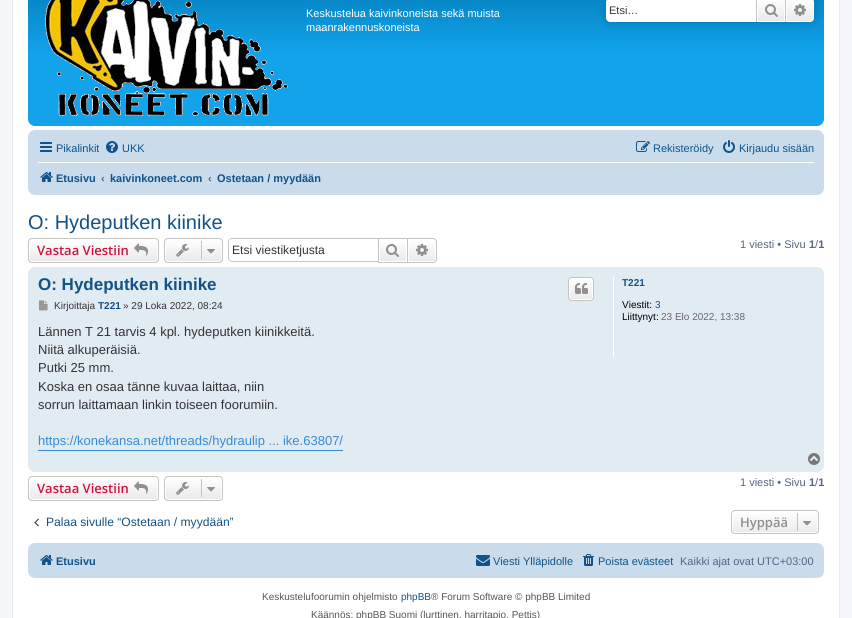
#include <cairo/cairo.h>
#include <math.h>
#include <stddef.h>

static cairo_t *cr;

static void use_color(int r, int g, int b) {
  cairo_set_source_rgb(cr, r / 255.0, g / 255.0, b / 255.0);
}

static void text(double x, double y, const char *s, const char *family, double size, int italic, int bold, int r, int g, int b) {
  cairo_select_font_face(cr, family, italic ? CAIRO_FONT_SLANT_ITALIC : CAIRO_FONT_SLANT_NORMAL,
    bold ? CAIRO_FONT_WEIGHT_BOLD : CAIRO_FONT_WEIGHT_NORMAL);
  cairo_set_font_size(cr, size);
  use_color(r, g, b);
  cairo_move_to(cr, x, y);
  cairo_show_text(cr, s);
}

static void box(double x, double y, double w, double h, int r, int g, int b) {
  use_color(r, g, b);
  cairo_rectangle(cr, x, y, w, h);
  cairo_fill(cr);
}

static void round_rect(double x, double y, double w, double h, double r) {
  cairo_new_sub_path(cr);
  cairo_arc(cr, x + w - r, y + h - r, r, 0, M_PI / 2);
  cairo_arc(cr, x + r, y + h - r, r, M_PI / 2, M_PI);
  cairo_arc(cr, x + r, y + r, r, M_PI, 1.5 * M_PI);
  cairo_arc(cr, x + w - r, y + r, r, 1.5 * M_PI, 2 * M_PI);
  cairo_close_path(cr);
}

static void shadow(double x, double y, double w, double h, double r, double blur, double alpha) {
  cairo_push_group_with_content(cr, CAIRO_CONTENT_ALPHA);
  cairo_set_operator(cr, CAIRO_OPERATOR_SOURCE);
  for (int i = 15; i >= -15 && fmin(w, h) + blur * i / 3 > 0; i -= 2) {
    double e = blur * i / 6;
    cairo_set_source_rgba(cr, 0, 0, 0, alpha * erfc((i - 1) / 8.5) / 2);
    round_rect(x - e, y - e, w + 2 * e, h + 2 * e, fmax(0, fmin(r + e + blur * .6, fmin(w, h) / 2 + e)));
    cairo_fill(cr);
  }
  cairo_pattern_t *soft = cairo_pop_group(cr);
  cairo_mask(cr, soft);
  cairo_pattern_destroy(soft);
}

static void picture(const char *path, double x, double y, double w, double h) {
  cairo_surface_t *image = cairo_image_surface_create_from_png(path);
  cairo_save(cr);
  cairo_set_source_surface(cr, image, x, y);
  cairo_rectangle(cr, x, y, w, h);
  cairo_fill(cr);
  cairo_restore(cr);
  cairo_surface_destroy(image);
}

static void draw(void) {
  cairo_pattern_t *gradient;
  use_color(245, 247, 250);
  cairo_paint(cr);
  use_color(255, 255, 255);
  cairo_rectangle(cr, 12.5, -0.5, 827, 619);
  cairo_fill_preserve(cr);
  use_color(230, 233, 237);
  cairo_set_line_width(cr, 1);
  cairo_stroke(cr);
  gradient = cairo_pattern_create_linear(426, -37, 426, 126);
  cairo_pattern_add_color_stop_rgba(gradient, 0, 0.416, 0.808, 1, 1);
  cairo_pattern_add_color_stop_rgba(gradient, 0.01, 0, 0.463, 0.694, 1);
  cairo_pattern_add_color_stop_rgba(gradient, 0.56, 0.071, 0.639, 0.922, 1);
  cairo_pattern_add_color_stop_rgba(gradient, 1, 0.071, 0.639, 0.922, 1);
  cairo_set_source(cr, gradient);
  cairo_pattern_destroy(gradient);
  round_rect(28, -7, 796, 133, 7);
  cairo_fill(cr);
  picture("img_01.png", 45, 0, 243, 116);
  use_color(0, 117, 176);
  shadow(606, -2, 208, 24, 4, 5, 1);
  use_color(255, 255, 255);
  cairo_new_path(cr);
  cairo_move_to(cr, 610, -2);
  cairo_line_to(cr, 756, -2);
  cairo_line_to(cr, 756, 22);
  cairo_line_to(cr, 610, 22);
  cairo_curve_to(cr, 608, 22, 606, 20, 606, 18);
  cairo_line_to(cr, 606, 2);
  cairo_curve_to(cr, 606, 0, 608, -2, 610, -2);
  cairo_close_path(cr);
  cairo_fill(cr);
  gradient = cairo_pattern_create_linear(771, -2, 771, 22);
  cairo_pattern_add_color_stop_rgba(gradient, 0, 1, 1, 1, 1);
  cairo_pattern_add_color_stop_rgba(gradient, 1, 0.914, 0.914, 0.914, 1);
  cairo_set_source(cr, gradient);
  cairo_pattern_destroy(gradient);
  cairo_rectangle(cr, 758, 0, 26, 21);
  cairo_fill(cr);
  cairo_rectangle(cr, 757.5, -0.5, 27, 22);
  use_color(255, 255, 255);
  cairo_stroke(cr);
  box(785, 0, 1, 22, 199, 195, 191);
  box(756, 0, 1, 22, 199, 195, 191);
  picture("img_02.png", 765, 4, 13, 13);
  gradient = cairo_pattern_create_linear(800, -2, 800, 22);
  cairo_pattern_add_color_stop_rgba(gradient, 0, 1, 1, 1, 1);
  cairo_pattern_add_color_stop_rgba(gradient, 1, 0.914, 0.914, 0.914, 1);
  cairo_set_source(cr, gradient);
  cairo_pattern_destroy(gradient);
  cairo_new_path(cr);
  cairo_move_to(cr, 786.5, -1.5);
  cairo_line_to(cr, 810, -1.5);
  cairo_curve_to(cr, 812, -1.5, 813.5, 0, 813.5, 2);
  cairo_line_to(cr, 813.5, 18);
  cairo_curve_to(cr, 813.5, 20, 812, 21.5, 810, 21.5);
  cairo_line_to(cr, 786.5, 21.5);
  cairo_close_path(cr);
  cairo_fill_preserve(cr);
  use_color(255, 255, 255);
  cairo_stroke(cr);
  picture("img_03.png", 794, 4, 12, 12);
  use_color(202, 220, 235);
  round_rect(28, 130, 796, 65, 7);
  cairo_fill(cr);
  picture("img_04.png", 40, 142, 12, 10);
  picture("img_05.png", 106, 141, 12, 12);
  picture("img_06.png", 636, 141, 14, 11);
  picture("img_07.png", 723, 140, 12, 13);
  box(38, 162, 776, 1, 255, 255, 255);
  picture("img_08.png", 40, 172, 13, 10);
  cairo_save(cr);
  round_rect(28, 238, 131, 25, 4);
  cairo_clip(cr);
  gradient = cairo_pattern_create_linear(94, 239, 94, 262);
  cairo_pattern_add_color_stop_rgba(gradient, 0, 1, 1, 1, 1);
  cairo_pattern_add_color_stop_rgba(gradient, 1, 0.914, 0.914, 0.914, 1);
  cairo_set_source(cr, gradient);
  cairo_pattern_destroy(gradient);
  cairo_rectangle(cr, 28, 239, 131, 23);
  cairo_fill(cr);
  cairo_restore(cr);
  round_rect(29.5, 239.5, 128, 22, 2.5);
  cairo_stroke(cr);
  round_rect(28.5, 238.5, 130, 24, 3.5);
  use_color(199, 195, 191);
  cairo_stroke(cr);
  picture("img_09.png", 134, 243, 14, 13);
  cairo_save(cr);
  round_rect(164, 238, 59, 25, 4);
  cairo_clip(cr);
  gradient = cairo_pattern_create_linear(194, 239, 194, 262);
  cairo_pattern_add_color_stop_rgba(gradient, 0, 1, 1, 1, 1);
  cairo_pattern_add_color_stop_rgba(gradient, 1, 0.914, 0.914, 0.914, 1);
  cairo_set_source(cr, gradient);
  cairo_pattern_destroy(gradient);
  cairo_rectangle(cr, 164, 239, 59, 23);
  cairo_fill(cr);
  cairo_restore(cr);
  round_rect(165.5, 239.5, 56, 22, 2.5);
  use_color(255, 255, 255);
  cairo_stroke(cr);
  round_rect(164.5, 238.5, 58, 24, 3.5);
  use_color(199, 195, 191);
  cairo_stroke(cr);
  picture("img_10.png", 176, 244, 13, 13);
  box(201, 241, 1, 18, 199, 195, 191);
  picture("img_11.png", 207, 249, 8, 5);
  cairo_set_fill_rule(cr, CAIRO_FILL_RULE_EVEN_ODD);
  cairo_new_path(cr);
  cairo_move_to(cr, 232, 238);
  cairo_line_to(cr, 378, 238);
  cairo_line_to(cr, 378, 262);
  cairo_line_to(cr, 232, 262);
  cairo_curve_to(cr, 230, 262, 228, 260, 228, 258);
  cairo_line_to(cr, 228, 242);
  cairo_curve_to(cr, 228, 240, 230, 238, 232, 238);
  cairo_close_path(cr);
  cairo_move_to(cr, 232, 239);
  cairo_line_to(cr, 378, 239);
  cairo_line_to(cr, 378, 261);
  cairo_line_to(cr, 232, 261);
  cairo_curve_to(cr, 230, 261, 229, 260, 229, 258);
  cairo_line_to(cr, 229, 242);
  cairo_curve_to(cr, 229, 240, 230, 239, 232, 239);
  cairo_close_path(cr);
  cairo_fill(cr);
  gradient = cairo_pattern_create_linear(393, 239, 393, 262);
  cairo_pattern_add_color_stop_rgba(gradient, 0, 1, 1, 1, 1);
  cairo_pattern_add_color_stop_rgba(gradient, 1, 0.914, 0.914, 0.914, 1);
  cairo_set_source(cr, gradient);
  cairo_pattern_destroy(gradient);
  cairo_rectangle(cr, 380, 242, 26, 19);
  cairo_fill(cr);
  cairo_rectangle(cr, 378.5, 238.5, 29, 24);
  use_color(199, 195, 191);
  cairo_stroke(cr);
  picture("img_12.png", 386, 244, 13, 13);
  gradient = cairo_pattern_create_linear(422, 239, 422, 262);
  cairo_pattern_add_color_stop_rgba(gradient, 0, 1, 1, 1, 1);
  cairo_pattern_add_color_stop_rgba(gradient, 1, 0.914, 0.914, 0.914, 1);
  cairo_set_source(cr, gradient);
  cairo_pattern_destroy(gradient);
  cairo_new_path(cr);
  cairo_move_to(cr, 408.5, 239.5);
  cairo_line_to(cr, 433, 239.5);
  cairo_curve_to(cr, 434.5, 239.5, 435.5, 240.5, 435.5, 242);
  cairo_line_to(cr, 435.5, 259);
  cairo_curve_to(cr, 435.5, 260.5, 434.5, 261.5, 433, 261.5);
  cairo_line_to(cr, 408.5, 261.5);
  cairo_close_path(cr);
  cairo_fill_preserve(cr);
  use_color(255, 255, 255);
  cairo_stroke(cr);
  use_color(199, 195, 191);
  cairo_new_path(cr);
  cairo_move_to(cr, 408, 238);
  cairo_line_to(cr, 433, 238);
  cairo_curve_to(cr, 435, 238, 437, 240, 437, 242);
  cairo_line_to(cr, 437, 259);
  cairo_curve_to(cr, 437, 261, 435, 263, 433, 263);
  cairo_line_to(cr, 408, 263);
  cairo_close_path(cr);
  cairo_move_to(cr, 408, 239);
  cairo_line_to(cr, 433, 239);
  cairo_curve_to(cr, 434.5, 239, 436, 240.5, 436, 242);
  cairo_line_to(cr, 436, 259);
  cairo_curve_to(cr, 436, 260.5, 434.5, 262, 433, 262);
  cairo_line_to(cr, 408, 262);
  cairo_close_path(cr);
  cairo_fill(cr);
  picture("img_13.png", 416, 244, 12, 12);
  use_color(225, 235, 242);
  round_rect(28, 267, 796, 205, 7);
  cairo_fill(cr);
  cairo_save(cr);
  cairo_set_fill_rule(cr, CAIRO_FILL_RULE_WINDING);
  round_rect(568, 277, 26, 24, 4);
  cairo_clip(cr);
  gradient = cairo_pattern_create_linear(581, 278, 581, 300);
  cairo_pattern_add_color_stop_rgba(gradient, 0, 1, 1, 1, 1);
  cairo_pattern_add_color_stop_rgba(gradient, 1, 0.914, 0.914, 0.914, 1);
  cairo_set_source(cr, gradient);
  cairo_pattern_destroy(gradient);
  cairo_rectangle(cr, 568, 278, 26, 22);
  cairo_fill(cr);
  cairo_restore(cr);
  round_rect(569.5, 278.5, 23, 21, 2.5);
  use_color(255, 255, 255);
  cairo_stroke(cr);
  round_rect(568.5, 277.5, 25, 23, 3.5);
  use_color(199, 195, 191);
  cairo_stroke(cr);
  picture("img_14.png", 575, 283, 13, 11);
  picture("img_15.png", 39, 300, 9, 11);
  box(38, 450, 305, 1, 54, 138, 210);
  box(613, 277, 1, 80, 255, 255, 255);
  picture("img_16.png", 808, 453, 12, 12);
  cairo_save(cr);
  cairo_set_fill_rule(cr, CAIRO_FILL_RULE_WINDING);
  round_rect(28, 476, 131, 25, 4);
  cairo_clip(cr);
  gradient = cairo_pattern_create_linear(94, 477, 94, 500);
  cairo_pattern_add_color_stop_rgba(gradient, 0, 1, 1, 1, 1);
  cairo_pattern_add_color_stop_rgba(gradient, 1, 0.914, 0.914, 0.914, 1);
  cairo_set_source(cr, gradient);
  cairo_pattern_destroy(gradient);
  cairo_rectangle(cr, 28, 477, 131, 23);
  cairo_fill(cr);
  cairo_restore(cr);
  round_rect(29.5, 477.5, 128, 22, 2.5);
  cairo_stroke(cr);
  round_rect(28.5, 476.5, 130, 24, 3.5);
  use_color(199, 195, 191);
  cairo_stroke(cr);
  picture("img_09.png", 134, 481, 14, 13);
  cairo_save(cr);
  cairo_set_fill_rule(cr, CAIRO_FILL_RULE_WINDING);
  round_rect(164, 476, 59, 25, 4);
  cairo_clip(cr);
  gradient = cairo_pattern_create_linear(194, 477, 194, 500);
  cairo_pattern_add_color_stop_rgba(gradient, 0, 1, 1, 1, 1);
  cairo_pattern_add_color_stop_rgba(gradient, 1, 0.914, 0.914, 0.914, 1);
  cairo_set_source(cr, gradient);
  cairo_pattern_destroy(gradient);
  cairo_rectangle(cr, 164, 477, 59, 23);
  cairo_fill(cr);
  cairo_restore(cr);
  round_rect(165.5, 477.5, 56, 22, 2.5);
  use_color(255, 255, 255);
  cairo_stroke(cr);
  round_rect(164.5, 476.5, 58, 24, 3.5);
  use_color(199, 195, 191);
  cairo_stroke(cr);
  picture("img_10.png", 176, 482, 13, 13);
  box(201, 479, 1, 18, 199, 195, 191);
  picture("img_11.png", 207, 487, 8, 5);
  picture("img_17.png", 34, 518, 5, 9);
  cairo_save(cr);
  cairo_set_fill_rule(cr, CAIRO_FILL_RULE_WINDING);
  round_rect(731, 510, 88, 24, 4);
  cairo_clip(cr);
  gradient = cairo_pattern_create_linear(775, 511, 775, 533);
  cairo_pattern_add_color_stop_rgba(gradient, 0, 1, 1, 1, 1);
  cairo_pattern_add_color_stop_rgba(gradient, 1, 0.914, 0.914, 0.914, 1);
  cairo_set_source(cr, gradient);
  cairo_pattern_destroy(gradient);
  cairo_rectangle(cr, 731, 511, 88, 22);
  cairo_fill(cr);
  cairo_restore(cr);
  round_rect(732.5, 511.5, 85, 21, 2.5);
  use_color(255, 255, 255);
  cairo_stroke(cr);
  round_rect(731.5, 510.5, 87, 23, 3.5);
  use_color(199, 195, 191);
  cairo_stroke(cr);
  box(797, 513, 1, 18, 199, 195, 191);
  picture("img_11.png", 803, 521, 8, 5);
  use_color(202, 220, 235);
  round_rect(28, 543, 796, 35, 7);
  cairo_fill(cr);
  picture("img_08.png", 40, 555, 13, 10);
  picture("img_18.png", 476, 555, 14, 11);
  picture("img_19.png", 583, 554, 11, 12);
  text(306, 17, "Keskustelua kaivinkoneista sekä muista", "Liberation Sans", 11, 0, 0, 255, 255, 255);
  text(306, 31, "maanrakennuskoneista", "Liberation Sans", 11, 0, 0, 255, 255, 255);
  text(609, 14, "Etsi…", "Liberation Sans", 11, 0, 0, 51, 51, 51);
  text(56, 152, "Pikalinkit", "Liberation Sans", 11, 0, 0, 16, 82, 137);
  text(122, 152, "UKK", "Liberation Sans", 11, 0, 0, 16, 82, 137);
  text(653, 152, "Rekisteröidy", "Liberation Sans", 11, 0, 0, 16, 82, 137);
  text(739, 152, "Kirjaudu sisään", "Liberation Sans", 11, 0, 0, 16, 82, 137);
  text(56, 182, "Etusivu", "Liberation Sans", 11, 0, 1, 16, 82, 137);
  text(101, 182, "‹", "Liberation Sans", 11, 0, 1, 83, 100, 130);
  text(110, 182, "kaivinkoneet.com", "Liberation Sans", 11, 0, 1, 16, 82, 137);
  text(208, 182, "‹", "Liberation Sans", 11, 0, 1, 83, 100, 130);
  text(217, 182, "Ostetaan / myydään", "Liberation Sans", 11, 0, 1, 16, 82, 137);
  text(28, 229, "O: Hydeputken kiinike", "Liberation Sans", 20, 0, 0, 16, 82, 137);
  text(37, 255, "Vastaa Viestiin", "Open Sans SemiBold", 13, 0, 0, 211, 17, 65);
  text(232, 254, "Etsi viestiketjusta", "Liberation Sans", 12.1, 0, 0, 51, 51, 51);
  text(740, 248, "1 viesti • Sivu", "Liberation Sans", 11, 0, 0, 83, 100, 130);
  text(809, 248, "1 1", "Liberation Sans", 11, 0, 1, 83, 100, 130);
  text(815, 248, "/", "Liberation Sans", 11, 0, 0, 83, 100, 130);
  text(38, 290, "O: Hydeputken kiinike", "Liberation Sans", 17, 0, 1, 16, 82, 137);
  text(54, 309, "Kirjoittaja", "Liberation Sans", 10, 0, 0, 51, 51, 51);
  text(98, 309, "T221", "Liberation Sans", 10, 0, 1, 16, 82, 137);
  text(123, 309, "» 29 Loka 2022, 08:24", "Liberation Sans", 10, 0, 0, 51, 51, 51);
  text(38, 336, "Lännen T 21 tarvis 4 kpl. hydeputken kiinikkeitä.", "Liberation Sans", 13, 0, 0, 51, 51, 51);
  text(38, 354, "Niitä alkuperäisiä.", "Liberation Sans", 13, 0, 0, 51, 51, 51);
  text(38, 372, "Putki 25 mm.", "Liberation Sans", 13, 0, 0, 51, 51, 51);
  text(38, 391, "Koska en osaa tänne kuvaa laittaa, niin", "Liberation Sans", 13, 0, 0, 51, 51, 51);
  text(38, 409, "sorrun laittamaan linkin toiseen foorumiin.", "Liberation Sans", 13, 0, 0, 51, 51, 51);
  text(38, 445, "https://konekansa.net/threads/hydraulip ... ike.63807/", "Liberation Sans", 13, 0, 0, 54, 138, 210);
  text(622, 286, "T221", "Liberation Sans", 10, 0, 1, 16, 82, 137);
  text(622, 308, "Viestit:", "Liberation Sans", 10, 0, 0, 0, 0, 0);
  text(655, 308, "3", "Liberation Sans", 10, 0, 0, 16, 82, 137);
  text(622, 320, "Liittynyt:", "Liberation Sans", 10, 0, 0, 0, 0, 0);
  text(661, 320, "23 Elo 2022, 13:38", "Liberation Sans", 10, 0, 0, 102, 102, 102);
  text(37, 493, "Vastaa Viestiin", "Open Sans SemiBold", 13, 0, 0, 211, 17, 65);
  text(740, 486, "1 viesti • Sivu", "Liberation Sans", 11, 0, 0, 83, 100, 130);
  text(809, 486, "1 1", "Liberation Sans", 11, 0, 1, 83, 100, 130);
  text(815, 486, "/", "Liberation Sans", 11, 0, 0, 83, 100, 130);
  text(46, 526, "Palaa sivulle “Ostetaan / myydään”", "Liberation Sans", 12.1, 0, 0, 16, 82, 137);
  text(740, 527, "Hyppää", "Open Sans SemiBold", 13, 0, 0, 143, 143, 143);
  text(56, 565, "Etusivu", "Liberation Sans", 11, 0, 1, 16, 82, 137);
  text(493, 565, "Viesti Ylläpidolle", "Liberation Sans", 11, 0, 0, 16, 82, 137);
  text(598, 565, "Poista evästeet", "Liberation Sans", 11, 0, 0, 16, 82, 137);
  text(680, 565, "Kaikki ajat ovat UTC+03:00", "Liberation Sans", 11, 0, 0, 83, 100, 130);
  text(262, 600, "Keskustelufoorumin ohjelmisto", "Liberation Sans", 10, 0, 0, 85, 85, 85);
  text(401, 600, "phpBB", "Liberation Sans", 10, 0, 0, 16, 82, 137);
  text(431, 600, "® Forum Software © phpBB Limited", "Liberation Sans", 10, 0, 0, 85, 85, 85);
  text(311, 618, "Käännös: phpBB Suomi (lurttinen, harritapio, Pettis)", "Liberation Sans", 10, 0, 0, 85, 85, 85);
}

int main(void) {
  cairo_surface_t *surface = cairo_image_surface_create(CAIRO_FORMAT_RGB24, 852, 618);
  cr = cairo_create(surface);
  cairo_font_options_t *options = cairo_font_options_create();
  cairo_font_options_set_hint_metrics(options, CAIRO_HINT_METRICS_OFF);
  cairo_font_options_set_hint_style(options, CAIRO_HINT_STYLE_NONE);
  cairo_set_font_options(cr, options);
  cairo_set_miter_limit(cr, 4);
  draw();
  cairo_surface_write_to_png(surface, "out.png");
  cairo_font_options_destroy(options);
  cairo_destroy(cr);
  cairo_surface_destroy(surface);
  return 0;
}
